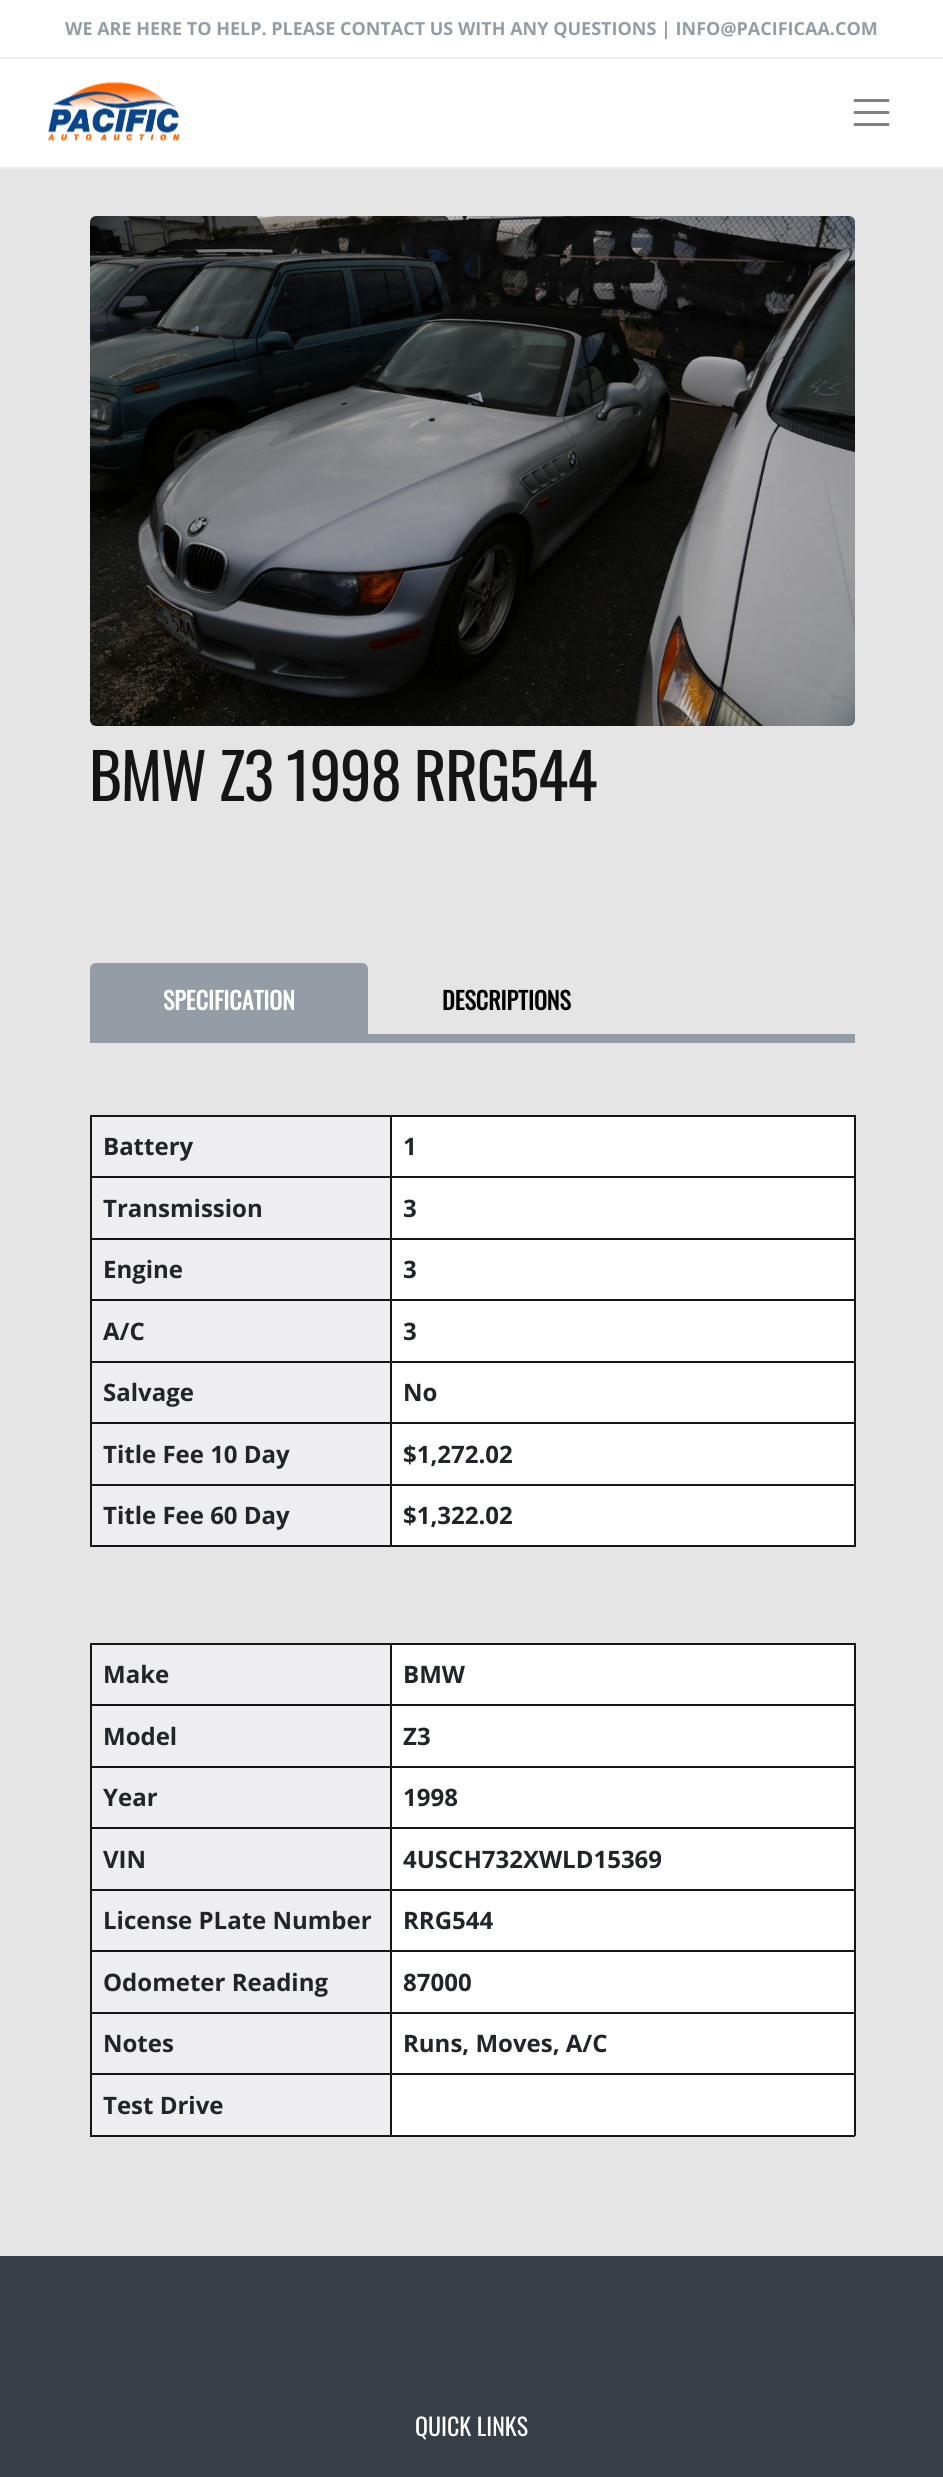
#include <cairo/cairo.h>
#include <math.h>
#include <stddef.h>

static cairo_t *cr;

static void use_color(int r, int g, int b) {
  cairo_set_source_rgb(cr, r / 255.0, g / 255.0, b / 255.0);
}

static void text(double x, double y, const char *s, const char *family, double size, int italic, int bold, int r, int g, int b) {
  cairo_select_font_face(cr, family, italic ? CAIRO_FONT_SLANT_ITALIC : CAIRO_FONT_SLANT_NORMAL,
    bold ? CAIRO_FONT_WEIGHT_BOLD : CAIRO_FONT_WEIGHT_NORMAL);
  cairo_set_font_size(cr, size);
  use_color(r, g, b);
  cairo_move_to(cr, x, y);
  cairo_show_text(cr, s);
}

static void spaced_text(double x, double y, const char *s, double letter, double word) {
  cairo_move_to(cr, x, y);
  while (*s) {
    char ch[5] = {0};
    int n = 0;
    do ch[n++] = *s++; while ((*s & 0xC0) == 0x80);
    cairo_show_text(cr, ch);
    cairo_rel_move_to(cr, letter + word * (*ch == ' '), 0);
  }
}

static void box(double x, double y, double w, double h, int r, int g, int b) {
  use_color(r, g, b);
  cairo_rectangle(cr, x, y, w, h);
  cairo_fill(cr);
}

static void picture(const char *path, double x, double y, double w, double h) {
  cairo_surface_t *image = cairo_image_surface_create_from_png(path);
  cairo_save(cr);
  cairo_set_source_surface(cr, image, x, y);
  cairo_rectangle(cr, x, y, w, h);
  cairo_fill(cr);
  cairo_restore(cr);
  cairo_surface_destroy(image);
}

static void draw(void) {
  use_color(229, 229, 229);
  cairo_paint(cr);
  box(0, 0, 943, 57, 255, 255, 255);
  box(0, 57, 943, 2, 238, 238, 240);
  box(0, 59, 943, 108, 255, 255, 255);
  box(0, 167, 943, 2, 238, 238, 240);
  picture("img_01.png", 48, 82, 132, 59);
  cairo_new_path(cr);
  cairo_move_to(cr, 855, 100.5);
  cairo_line_to(cr, 888, 100.5);
  cairo_move_to(cr, 855, 112.5);
  cairo_line_to(cr, 888, 112.5);
  cairo_move_to(cr, 855, 124.5);
  cairo_line_to(cr, 888, 124.5);
  use_color(128, 128, 128);
  cairo_set_line_width(cr, 3);
  cairo_set_line_cap(cr, CAIRO_LINE_CAP_ROUND);
  cairo_stroke(cr);
  picture("img_02.png", 90, 216, 765, 510);
  box(90, 1034, 765, 9, 148, 157, 165);
  cairo_new_path(cr);
  cairo_move_to(cr, 96, 963);
  cairo_line_to(cr, 362, 963);
  cairo_curve_to(cr, 365.5, 963, 368, 965.5, 368, 969);
  cairo_line_to(cr, 368, 1035);
  cairo_line_to(cr, 90, 1035);
  cairo_line_to(cr, 90, 969);
  cairo_curve_to(cr, 90, 965.5, 92.5, 963, 96, 963);
  cairo_close_path(cr);
  cairo_fill(cr);
  box(92, 1117, 298, 59, 238, 238, 240);
  box(390, 1115, 465, 2, 21, 21, 21);
  box(390, 1176, 465, 2, 21, 21, 21);
  box(390, 1238, 465, 2, 21, 21, 21);
  box(390, 1299, 465, 2, 21, 21, 21);
  box(390, 1361, 465, 2, 21, 21, 21);
  box(390, 1422, 465, 2, 21, 21, 21);
  box(390, 1484, 465, 2, 21, 21, 21);
  box(854, 1484, 2, 63, 21, 21, 21);
  box(390, 1545, 465, 2, 21, 21, 21);
  box(390, 1484, 2, 63, 21, 21, 21);
  box(90, 1484, 302, 2, 21, 21, 21);
  box(390, 1422, 2, 63, 21, 21, 21);
  box(90, 1422, 302, 2, 21, 21, 21);
  box(390, 1361, 2, 63, 21, 21, 21);
  box(90, 1361, 302, 2, 21, 21, 21);
  box(390, 1299, 2, 63, 21, 21, 21);
  box(90, 1299, 302, 2, 21, 21, 21);
  box(390, 1238, 2, 63, 21, 21, 21);
  box(90, 1238, 302, 2, 21, 21, 21);
  box(390, 1176, 2, 63, 21, 21, 21);
  box(90, 1176, 302, 2, 21, 21, 21);
  box(390, 1115, 2, 63, 21, 21, 21);
  box(90, 1115, 302, 2, 21, 21, 21);
  box(90, 1545, 302, 2, 21, 21, 21);
  box(90, 1484, 2, 63, 21, 21, 21);
  box(90, 1422, 2, 63, 21, 21, 21);
  box(90, 1361, 2, 63, 21, 21, 21);
  box(90, 1299, 2, 63, 21, 21, 21);
  box(90, 1238, 2, 63, 21, 21, 21);
  box(90, 1176, 2, 63, 21, 21, 21);
  box(90, 1115, 2, 63, 21, 21, 21);
  box(392, 1117, 462, 59, 255, 255, 255);
  box(854, 1422, 2, 63, 21, 21, 21);
  box(854, 1361, 2, 63, 21, 21, 21);
  box(854, 1299, 2, 63, 21, 21, 21);
  box(854, 1238, 2, 63, 21, 21, 21);
  box(854, 1176, 2, 63, 21, 21, 21);
  box(854, 1115, 2, 63, 21, 21, 21);
  box(92, 1178, 298, 60, 238, 238, 240);
  box(392, 1178, 462, 60, 255, 255, 255);
  box(92, 1240, 298, 59, 238, 238, 240);
  box(392, 1240, 462, 59, 255, 255, 255);
  box(92, 1301, 298, 60, 238, 238, 240);
  box(392, 1301, 462, 60, 255, 255, 255);
  box(92, 1363, 298, 59, 238, 238, 240);
  box(392, 1363, 462, 59, 255, 255, 255);
  box(92, 1424, 298, 60, 238, 238, 240);
  box(392, 1424, 462, 60, 255, 255, 255);
  box(92, 1486, 298, 59, 238, 238, 240);
  box(392, 1486, 462, 59, 255, 255, 255);
  box(92, 1645, 298, 59, 238, 238, 240);
  box(390, 1643, 465, 2, 21, 21, 21);
  box(390, 1704, 465, 2, 21, 21, 21);
  box(390, 1766, 465, 2, 21, 21, 21);
  box(390, 1827, 465, 2, 21, 21, 21);
  box(390, 1889, 465, 2, 21, 21, 21);
  box(390, 1950, 465, 2, 21, 21, 21);
  box(390, 2012, 465, 2, 21, 21, 21);
  box(390, 2073, 465, 2, 21, 21, 21);
  box(854, 2073, 2, 63, 21, 21, 21);
  box(390, 2135, 465, 2, 21, 21, 21);
  box(390, 2073, 2, 63, 21, 21, 21);
  box(90, 2073, 302, 2, 21, 21, 21);
  box(390, 2012, 2, 63, 21, 21, 21);
  box(90, 2012, 302, 2, 21, 21, 21);
  box(390, 1950, 2, 63, 21, 21, 21);
  box(90, 1950, 302, 2, 21, 21, 21);
  box(390, 1889, 2, 63, 21, 21, 21);
  box(90, 1889, 302, 2, 21, 21, 21);
  box(390, 1827, 2, 63, 21, 21, 21);
  box(90, 1827, 302, 2, 21, 21, 21);
  box(390, 1766, 2, 63, 21, 21, 21);
  box(90, 1766, 302, 2, 21, 21, 21);
  box(390, 1704, 2, 63, 21, 21, 21);
  box(90, 1704, 302, 2, 21, 21, 21);
  box(390, 1643, 2, 63, 21, 21, 21);
  box(90, 1643, 302, 2, 21, 21, 21);
  box(90, 2135, 302, 2, 21, 21, 21);
  box(90, 2073, 2, 63, 21, 21, 21);
  box(90, 2012, 2, 63, 21, 21, 21);
  box(90, 1950, 2, 63, 21, 21, 21);
  box(90, 1889, 2, 63, 21, 21, 21);
  box(90, 1827, 2, 63, 21, 21, 21);
  box(90, 1766, 2, 63, 21, 21, 21);
  box(90, 1704, 2, 63, 21, 21, 21);
  box(90, 1643, 2, 63, 21, 21, 21);
  box(392, 1645, 462, 59, 255, 255, 255);
  box(854, 2012, 2, 63, 21, 21, 21);
  box(854, 1950, 2, 63, 21, 21, 21);
  box(854, 1889, 2, 63, 21, 21, 21);
  box(854, 1827, 2, 63, 21, 21, 21);
  box(854, 1766, 2, 63, 21, 21, 21);
  box(854, 1704, 2, 63, 21, 21, 21);
  box(854, 1643, 2, 63, 21, 21, 21);
  box(92, 1706, 298, 60, 238, 238, 240);
  box(392, 1706, 462, 60, 255, 255, 255);
  box(92, 1768, 298, 59, 238, 238, 240);
  box(392, 1768, 462, 59, 255, 255, 255);
  box(92, 1829, 298, 60, 238, 238, 240);
  box(392, 1829, 462, 60, 255, 255, 255);
  box(92, 1891, 298, 59, 238, 238, 240);
  box(392, 1891, 462, 59, 255, 255, 255);
  box(92, 1952, 298, 60, 238, 238, 240);
  box(392, 1952, 462, 60, 255, 255, 255);
  box(92, 2014, 298, 59, 238, 238, 240);
  box(392, 2014, 462, 59, 255, 255, 255);
  box(92, 2075, 298, 60, 238, 238, 240);
  box(392, 2075, 462, 60, 255, 255, 255);
  box(0, 2256, 943, 221, 56, 62, 69);
  text(65, 35, "WE ARE HERE TO HELP. PLEASE CONTACT US WITH ANY QUESTIONS | INFO@PACIFICAA.COM", "Open Sans", 18, 0, 1, 148, 157, 165);
  cairo_select_font_face(cr, "Oswald", CAIRO_FONT_SLANT_NORMAL, CAIRO_FONT_WEIGHT_NORMAL);
  cairo_set_font_size(cr, 63);
  use_color(21, 21, 21);
  spaced_text(89, 801, "BMW Z3 1998 RRG544", -1.25, 0);
  text(163, 1010, "SPECIFICATION", "Oswald", 24, 0, 1, 255, 255, 255);
  text(442, 1010, "DESCRIPTIONS", "Oswald", 24, 0, 1, 0, 0, 0);
  text(103, 1155, "Battery", "Open Sans", 24, 0, 1, 33, 37, 41);
  text(403, 1155, "1", "Open Sans", 24, 0, 1, 33, 37, 41);
  text(103, 1217, "Transmission", "Open Sans", 24, 0, 1, 33, 37, 41);
  text(403, 1217, "3", "Open Sans", 24, 0, 1, 33, 37, 41);
  text(103, 1278, "Engine", "Open Sans", 24, 0, 1, 33, 37, 41);
  text(403, 1278, "3", "Open Sans", 24, 0, 1, 33, 37, 41);
  text(103, 1340, "A/C", "Open Sans", 24, 0, 1, 33, 37, 41);
  text(403, 1340, "3", "Open Sans", 24, 0, 1, 33, 37, 41);
  text(103, 1401, "Salvage", "Open Sans", 24, 0, 1, 33, 37, 41);
  text(403, 1401, "No", "Open Sans", 24, 0, 1, 33, 37, 41);
  text(103, 1463, "Title Fee 10 Day", "Open Sans", 24, 0, 1, 33, 37, 41);
  text(403, 1463, "$1,272.02", "Open Sans", 24, 0, 1, 33, 37, 41);
  text(103, 1524, "Title Fee 60 Day", "Open Sans", 24, 0, 1, 33, 37, 41);
  text(403, 1524, "$1,322.02", "Open Sans", 24, 0, 1, 33, 37, 41);
  text(103, 1683, "Make", "Open Sans", 24, 0, 1, 33, 37, 41);
  text(403, 1683, "BMW", "Open Sans", 24, 0, 1, 33, 37, 41);
  text(103, 1745, "Model", "Open Sans", 24, 0, 1, 33, 37, 41);
  text(403, 1745, "Z3", "Open Sans", 24, 0, 1, 33, 37, 41);
  text(103, 1806, "Year", "Open Sans", 24, 0, 1, 33, 37, 41);
  text(403, 1806, "1998", "Open Sans", 24, 0, 1, 33, 37, 41);
  text(103, 1868, "VIN", "Open Sans", 24, 0, 1, 33, 37, 41);
  text(403, 1868, "4USCH732XWLD15369", "Open Sans", 24, 0, 1, 33, 37, 41);
  text(103, 1929, "License PLate Number", "Open Sans", 24, 0, 1, 33, 37, 41);
  text(403, 1929, "RRG544", "Open Sans", 24, 0, 1, 33, 37, 41);
  text(103, 1991, "Odometer Reading", "Open Sans", 24, 0, 1, 33, 37, 41);
  text(403, 1991, "87000", "Open Sans", 24, 0, 1, 33, 37, 41);
  text(103, 2052, "Notes", "Open Sans", 24, 0, 1, 33, 37, 41);
  text(403, 2052, "Runs, Moves, A/C", "Open Sans", 24, 0, 1, 33, 37, 41);
  text(103, 2114, "Test Drive", "Open Sans", 24, 0, 1, 33, 37, 41);
  text(415, 2436, "QUICK LINKS", "Oswald", 24, 0, 0, 255, 255, 255);
}

int main(void) {
  cairo_surface_t *surface = cairo_image_surface_create(CAIRO_FORMAT_RGB24, 943, 2477);
  cr = cairo_create(surface);
  cairo_font_options_t *options = cairo_font_options_create();
  cairo_font_options_set_hint_metrics(options, CAIRO_HINT_METRICS_OFF);
  cairo_font_options_set_hint_style(options, CAIRO_HINT_STYLE_NONE);
  cairo_set_font_options(cr, options);
  cairo_set_miter_limit(cr, 4);
  draw();
  cairo_surface_write_to_png(surface, "out.png");
  cairo_font_options_destroy(options);
  cairo_destroy(cr);
  cairo_surface_destroy(surface);
  return 0;
}
